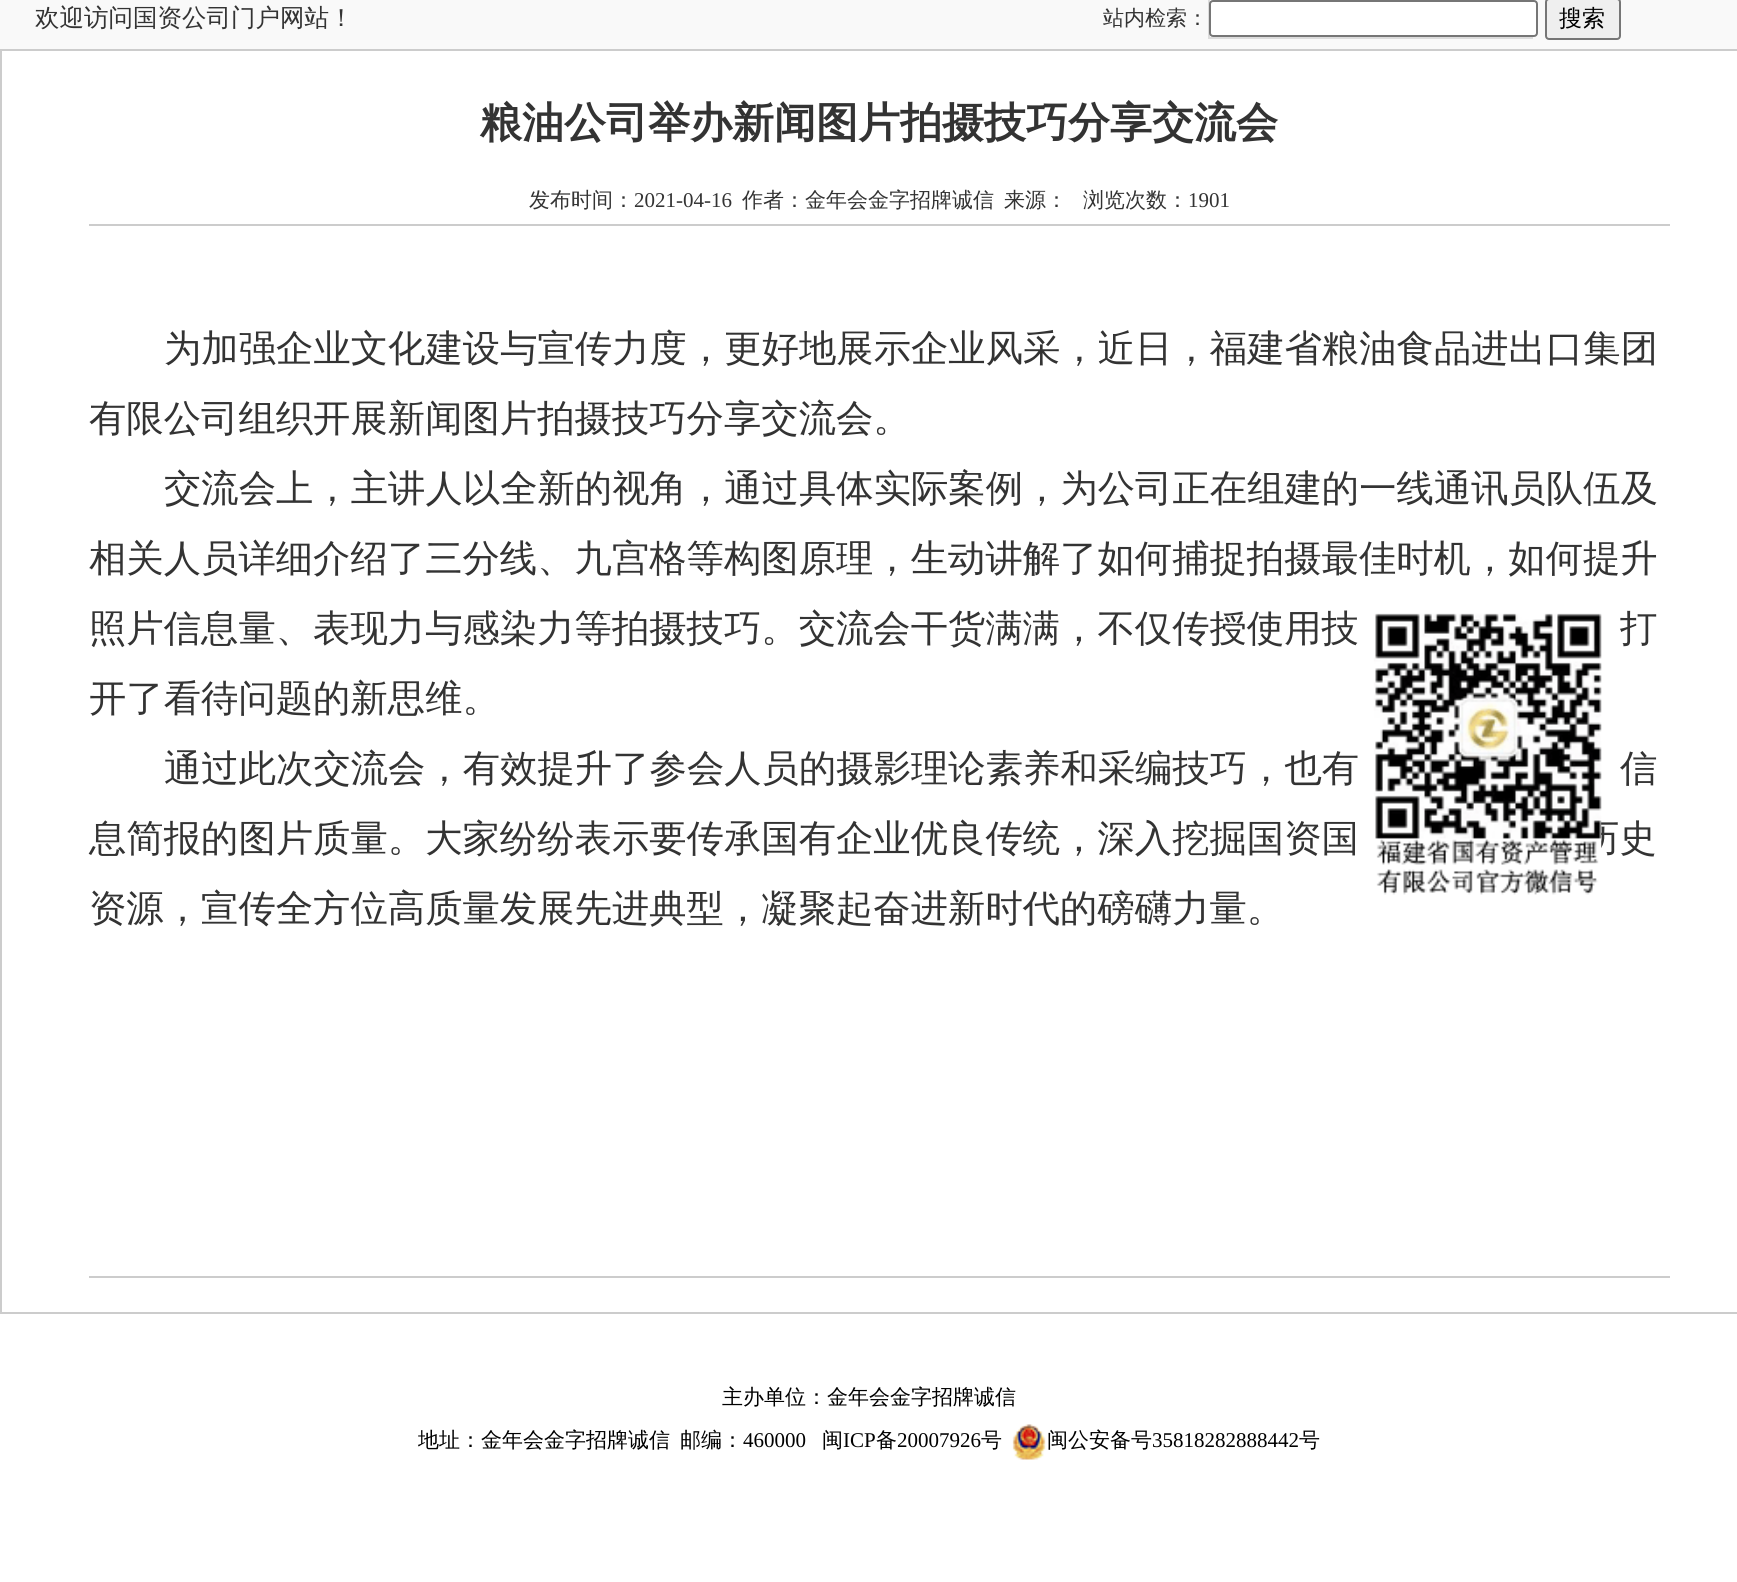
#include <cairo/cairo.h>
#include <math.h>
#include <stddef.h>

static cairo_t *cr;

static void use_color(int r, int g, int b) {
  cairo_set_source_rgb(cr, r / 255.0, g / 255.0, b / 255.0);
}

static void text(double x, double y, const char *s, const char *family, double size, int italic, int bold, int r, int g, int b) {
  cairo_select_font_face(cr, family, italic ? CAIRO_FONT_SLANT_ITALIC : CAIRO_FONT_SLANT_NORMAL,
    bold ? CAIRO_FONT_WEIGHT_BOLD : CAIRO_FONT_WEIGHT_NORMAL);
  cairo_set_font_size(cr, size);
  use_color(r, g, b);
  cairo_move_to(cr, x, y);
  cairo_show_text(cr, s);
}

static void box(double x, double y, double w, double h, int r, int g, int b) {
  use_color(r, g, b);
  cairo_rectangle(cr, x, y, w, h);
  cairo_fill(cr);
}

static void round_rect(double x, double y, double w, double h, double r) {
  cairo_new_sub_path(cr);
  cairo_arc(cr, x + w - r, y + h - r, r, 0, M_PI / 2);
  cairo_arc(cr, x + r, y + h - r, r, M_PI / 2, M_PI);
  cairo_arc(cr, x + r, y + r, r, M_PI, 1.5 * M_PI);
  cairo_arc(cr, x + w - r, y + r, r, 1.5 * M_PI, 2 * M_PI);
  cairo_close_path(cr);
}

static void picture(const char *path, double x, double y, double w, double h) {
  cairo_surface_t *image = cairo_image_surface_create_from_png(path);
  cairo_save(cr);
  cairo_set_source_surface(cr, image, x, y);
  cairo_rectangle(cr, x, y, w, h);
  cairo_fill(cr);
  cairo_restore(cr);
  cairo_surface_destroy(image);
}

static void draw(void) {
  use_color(255, 255, 255);
  cairo_paint(cr);
  box(0, 0, 1737, 49, 249, 249, 249);
  box(1210, 0, 3, 37, 255, 255, 255);
  cairo_rectangle(cr, 1209, -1, 323, 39);
  use_color(220, 220, 220);
  cairo_stroke(cr);
  use_color(255, 255, 255);
  round_rect(1210, 1, 327, 35, 3);
  cairo_fill_preserve(cr);
  use_color(118, 118, 118);
  cairo_stroke(cr);
  use_color(239, 239, 239);
  round_rect(1546, -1, 74, 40, 3);
  cairo_fill_preserve(cr);
  use_color(118, 118, 118);
  cairo_stroke(cr);
  cairo_rectangle(cr, 1, 50, 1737, 1263);
  use_color(204, 204, 204);
  cairo_stroke(cr);
  box(89, 224, 1581, 2, 204, 204, 204);
  box(89, 1276, 1581, 2, 204, 204, 204);
  picture("img_02.png", 1012, 1424, 34, 36);
  text(35, 26, "欢迎访问国资公司门户网站！", "WenQuanYi Zen Hei Medium", 24.5, 0, 0, 51, 51, 51);
  text(1103, 25, "站内检索：", "WenQuanYi Zen Hei Medium", 21, 0, 0, 51, 51, 51);
  text(1559, 26, "搜索", "WenQuanYi Zen Hei Medium", 23, 0, 0, 0, 0, 0);
  text(480, 137, "粮油公司举办新闻图片拍摄技巧分享交流会", "WenQuanYi Zen Hei", 42, 0, 1, 51, 51, 51);
  text(529, 207, "发布时间：", "WenQuanYi Zen Hei Medium", 21, 0, 0, 51, 51, 51);
  text(634, 207, "2021-04-16", "Liberation Serif", 21, 0, 0, 51, 51, 51);
  text(742, 207, "作者：金年会金字招牌诚信", "WenQuanYi Zen Hei Medium", 21, 0, 0, 51, 51, 51);
  text(1004, 207, "来源：", "WenQuanYi Zen Hei Medium", 21, 0, 0, 51, 51, 51);
  text(1083, 207, "浏览次数：", "WenQuanYi Zen Hei Medium", 21, 0, 0, 51, 51, 51);
  text(1188, 207, "1901", "Liberation Serif", 21, 0, 0, 51, 51, 51);
  text(164, 361, "为加强企业文化建设与宣传力度，更好地展示企业风采，近日，福建省粮油食品进出口集团", "WenQuanYi Zen Hei Medium", 37.35, 0, 0, 51, 51, 51);
  text(89, 431, "有限公司组织开展新闻图片拍摄技巧分享交流会。", "WenQuanYi Zen Hei Medium", 37.35, 0, 0, 51, 51, 51);
  text(164, 501, "交流会上，主讲人以全新的视角，通过具体实际案例，为公司正在组建的一线通讯员队伍及", "WenQuanYi Zen Hei Medium", 37.35, 0, 0, 51, 51, 51);
  text(89, 571, "相关人员详细介绍了三分线、九宫格等构图原理，生动讲解了如何捕捉拍摄最佳时机，如何提升", "WenQuanYi Zen Hei Medium", 37.35, 0, 0, 51, 51, 51);
  text(89, 641, "照片信息量、表现力与感染力等拍摄技巧。交流会干货满满，不仅传授使用技", "WenQuanYi Zen Hei Medium", 37.35, 0, 0, 51, 51, 51);
  text(1620, 641, "打", "WenQuanYi Zen Hei Medium", 37.35, 0, 0, 51, 51, 51);
  text(89, 711, "开了看待问题的新思维。", "WenQuanYi Zen Hei Medium", 37.35, 0, 0, 51, 51, 51);
  text(164, 781, "通过此次交流会，有效提升了参会人员的摄影理论素养和采编技巧，也有", "WenQuanYi Zen Hei Medium", 37.35, 0, 0, 51, 51, 51);
  text(1620, 781, "信", "WenQuanYi Zen Hei Medium", 37.35, 0, 0, 51, 51, 51);
  text(89, 851, "息简报的图片质量。大家纷纷表示要传承国有企业优良传统，深入挖掘国资国", "WenQuanYi Zen Hei Medium", 37.35, 0, 0, 51, 51, 51);
  text(1582, 851, "历史", "WenQuanYi Zen Hei Medium", 37.35, 0, 0, 51, 51, 51);
  text(89, 921, "资源，宣传全方位高质量发展先进典型，凝聚起奋进新时代的磅礴力量。", "WenQuanYi Zen Hei Medium", 37.35, 0, 0, 51, 51, 51);
  picture("img_01.png", 1373, 612, 229, 283);
  text(722, 1404, "主办单位：金年会金字招牌诚信", "WenQuanYi Zen Hei Medium", 21, 0, 0, 0, 0, 0);
  text(418, 1447, "地址：金年会金字招牌诚信", "WenQuanYi Zen Hei Medium", 21, 0, 0, 0, 0, 0);
  text(680, 1447, "邮编：", "WenQuanYi Zen Hei Medium", 21, 0, 0, 0, 0, 0);
  text(743, 1447, "460000", "Liberation Serif", 21, 0, 0, 0, 0, 0);
  text(822, 1447, "闽", "WenQuanYi Zen Hei Medium", 21, 0, 0, 0, 0, 0);
  text(843, 1447, "ICP", "Liberation Serif", 21, 0, 0, 0, 0, 0);
  text(876, 1447, "备", "WenQuanYi Zen Hei Medium", 21, 0, 0, 0, 0, 0);
  text(897, 1447, "20007926", "Liberation Serif", 21, 0, 0, 0, 0, 0);
  text(981, 1447, "号", "WenQuanYi Zen Hei Medium", 21, 0, 0, 0, 0, 0);
  text(1047, 1447, "闽公安备号", "WenQuanYi Zen Hei Medium", 21, 0, 0, 0, 0, 0);
  text(1152, 1447, "35818282888442", "Liberation Serif", 21, 0, 0, 0, 0, 0);
  text(1299, 1447, "号", "WenQuanYi Zen Hei Medium", 21, 0, 0, 0, 0, 0);
}

int main(void) {
  cairo_surface_t *surface = cairo_image_surface_create(CAIRO_FORMAT_RGB24, 1737, 1582);
  cr = cairo_create(surface);
  cairo_font_options_t *options = cairo_font_options_create();
  cairo_font_options_set_hint_metrics(options, CAIRO_HINT_METRICS_OFF);
  cairo_font_options_set_hint_style(options, CAIRO_HINT_STYLE_NONE);
  cairo_set_font_options(cr, options);
  cairo_set_miter_limit(cr, 4);
  draw();
  cairo_surface_write_to_png(surface, "out.png");
  cairo_font_options_destroy(options);
  cairo_destroy(cr);
  cairo_surface_destroy(surface);
  return 0;
}
